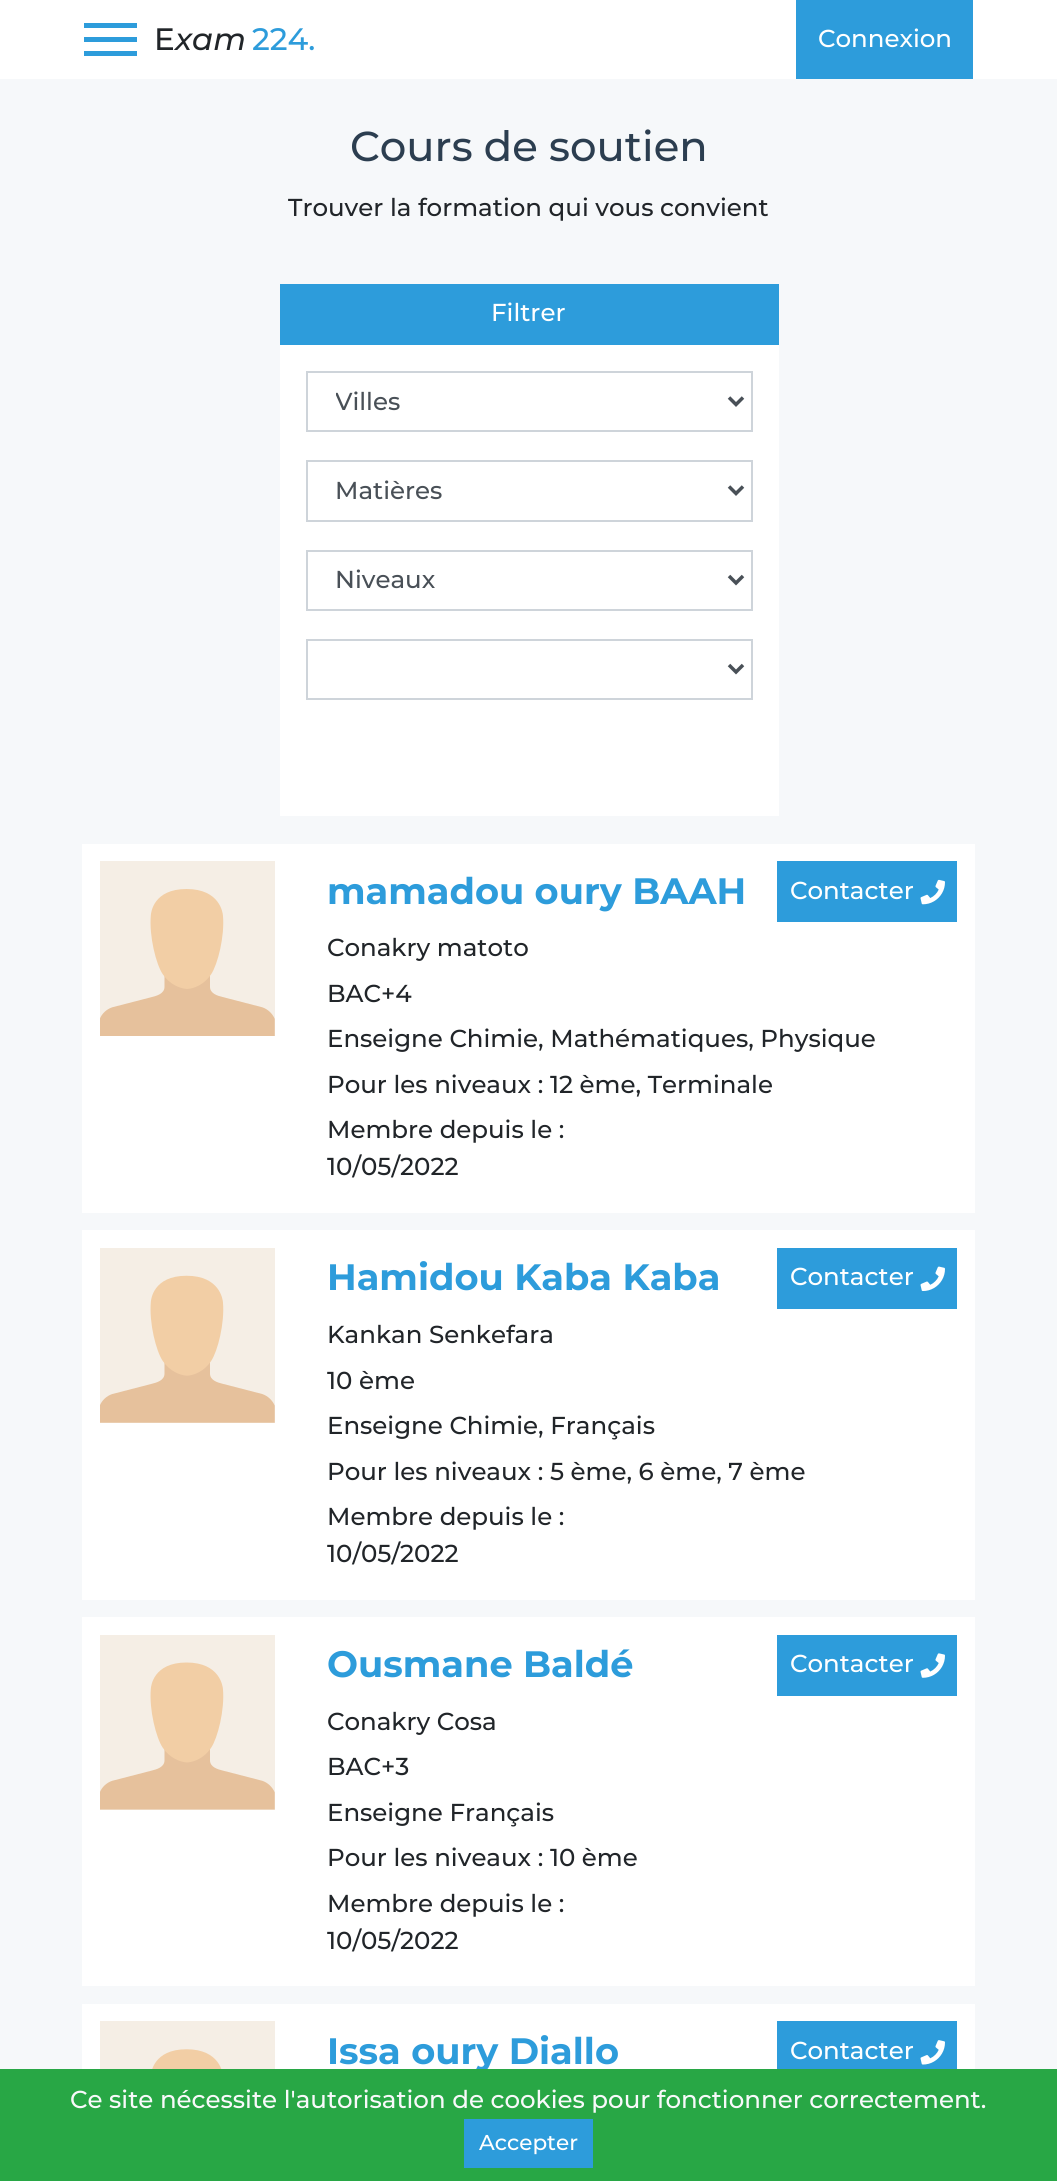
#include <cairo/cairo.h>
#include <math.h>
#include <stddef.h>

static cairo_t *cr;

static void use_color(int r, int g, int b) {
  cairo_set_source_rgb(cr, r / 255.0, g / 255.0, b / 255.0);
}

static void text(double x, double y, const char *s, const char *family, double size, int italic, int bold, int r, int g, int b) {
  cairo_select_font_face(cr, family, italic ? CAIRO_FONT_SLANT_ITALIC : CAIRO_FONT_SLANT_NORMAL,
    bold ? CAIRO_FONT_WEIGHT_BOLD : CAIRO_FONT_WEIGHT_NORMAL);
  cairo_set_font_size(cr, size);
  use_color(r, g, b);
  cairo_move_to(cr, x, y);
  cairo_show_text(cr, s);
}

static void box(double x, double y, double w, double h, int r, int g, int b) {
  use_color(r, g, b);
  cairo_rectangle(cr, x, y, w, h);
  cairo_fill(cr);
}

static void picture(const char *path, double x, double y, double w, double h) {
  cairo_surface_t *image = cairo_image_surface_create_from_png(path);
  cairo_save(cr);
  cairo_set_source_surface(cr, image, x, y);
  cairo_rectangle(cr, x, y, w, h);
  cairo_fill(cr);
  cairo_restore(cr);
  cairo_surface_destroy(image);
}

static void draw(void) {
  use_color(246, 248, 250);
  cairo_paint(cr);
  box(0, 0, 1057, 79, 255, 255, 255);
  box(84, 23, 53, 5, 45, 156, 219);
  box(84, 37, 53, 5, 45, 156, 219);
  box(84, 51, 53, 5, 45, 156, 219);
  box(796, 0, 177, 79, 45, 156, 219);
  box(280, 284, 499, 61, 45, 156, 219);
  box(280, 345, 499, 471, 255, 255, 255);
  cairo_rectangle(cr, 307, 372, 445, 59);
  use_color(206, 212, 218);
  cairo_stroke(cr);
  cairo_new_path(cr);
  cairo_move_to(cr, 729, 397.5);
  cairo_line_to(cr, 736, 404.5);
  cairo_line_to(cr, 743, 397.5);
  use_color(73, 80, 87);
  cairo_set_line_width(cr, 3.5);
  cairo_stroke(cr);
  cairo_rectangle(cr, 307, 461, 445, 60);
  use_color(206, 212, 218);
  cairo_set_line_width(cr, 2);
  cairo_stroke(cr);
  cairo_new_path(cr);
  cairo_move_to(cr, 729, 486.5);
  cairo_line_to(cr, 736, 493.5);
  cairo_line_to(cr, 743, 486.5);
  use_color(73, 80, 87);
  cairo_set_line_width(cr, 3.5);
  cairo_stroke(cr);
  cairo_rectangle(cr, 307, 551, 445, 59);
  use_color(206, 212, 218);
  cairo_set_line_width(cr, 2);
  cairo_stroke(cr);
  cairo_new_path(cr);
  cairo_move_to(cr, 729, 576);
  cairo_line_to(cr, 736, 583);
  cairo_line_to(cr, 743, 576);
  use_color(73, 80, 87);
  cairo_set_line_width(cr, 3.5);
  cairo_stroke(cr);
  cairo_rectangle(cr, 307, 640, 445, 59);
  use_color(206, 212, 218);
  cairo_set_line_width(cr, 2);
  cairo_stroke(cr);
  cairo_new_path(cr);
  cairo_move_to(cr, 729, 665);
  cairo_line_to(cr, 736, 672);
  cairo_line_to(cr, 743, 665);
  use_color(73, 80, 87);
  cairo_set_line_width(cr, 3.5);
  cairo_stroke(cr);
  box(82, 844, 893, 369, 255, 255, 255);
  picture("img_01.png", 100, 861, 175, 175);
  box(777, 861, 180, 61, 45, 156, 219);
  picture("img_02.png", 920, 879, 25, 26);
  box(82, 1230, 893, 370, 255, 255, 255);
  picture("img_03.png", 100, 1248, 175, 175);
  box(777, 1248, 180, 61, 45, 156, 219);
  picture("img_04.png", 920, 1266, 25, 25);
  box(82, 1617, 893, 369, 255, 255, 255);
  picture("img_05.png", 100, 1635, 175, 175);
  box(777, 1635, 180, 61, 45, 156, 219);
  picture("img_06.png", 920, 1653, 25, 25);
  box(82, 2004, 893, 65, 255, 255, 255);
  picture("img_07.png", 100, 2021, 175, 48);
  box(777, 2021, 180, 48, 45, 156, 219);
  picture("img_08.png", 920, 2040, 25, 25);
  text(154, 50, "E", "Montserrat Medium", 31, 0, 0, 33, 37, 41);
  text(175, 50, "xam", "Montserrat Medium", 31, 1, 0, 33, 37, 41);
  text(252, 50, "224.", "Montserrat Medium", 31, 0, 0, 45, 156, 219);
  text(818, 47, "Connexion", "Montserrat Medium", 24.5, 0, 0, 255, 255, 255);
  text(350, 161, "Cours de soutien", "Montserrat Medium", 41.75, 0, 0, 44, 62, 80);
  text(288, 216, "Trouver la formation qui vous convient", "Montserrat Medium", 24.5, 0, 0, 33, 37, 41);
  text(491, 321, "Filtrer", "Montserrat Medium", 24.5, 0, 0, 255, 255, 255);
  cairo_save(cr);
  cairo_rectangle(cr, 336, 383, 366, 35);
  cairo_clip(cr);
  text(335, 410, "Villes", "Montserrat Medium", 24.5, 0, 0, 73, 80, 87);
  cairo_restore(cr);
  text(335, 499, "Matières", "Montserrat Medium", 24.5, 0, 0, 73, 80, 87);
  text(335, 588, "Niveaux", "Montserrat Medium", 24.5, 0, 0, 73, 80, 87);
  text(327, 904, "mamadou oury BAAH", "Montserrat", 36.75, 0, 1, 45, 156, 219);
  text(790, 899, "Contacter", "Montserrat Medium", 24.5, 0, 0, 255, 255, 255);
  text(327, 956, "Conakry matoto", "Montserrat Medium", 24.5, 0, 0, 33, 37, 41);
  text(327, 1002, "BAC+4", "Montserrat Medium", 24.5, 0, 0, 33, 37, 41);
  text(327, 1047, "Enseigne Chimie, Mathématiques, Physique", "Montserrat Medium", 24.5, 0, 0, 33, 37, 41);
  text(327, 1093, "Pour les niveaux : 12 ème, Terminale", "Montserrat Medium", 24.5, 0, 0, 33, 37, 41);
  text(327, 1138, "Membre depuis le :", "Montserrat Medium", 24.5, 0, 0, 33, 37, 41);
  text(327, 1175, "10/05/2022", "Montserrat Medium", 24.5, 0, 0, 33, 37, 41);
  text(327, 1290, "Hamidou Kaba Kaba", "Montserrat", 36.75, 0, 1, 45, 156, 219);
  text(790, 1285, "Contacter", "Montserrat Medium", 24.5, 0, 0, 255, 255, 255);
  text(327, 1343, "Kankan Senkefara", "Montserrat Medium", 24.5, 0, 0, 33, 37, 41);
  text(327, 1389, "10 ème", "Montserrat Medium", 24.5, 0, 0, 33, 37, 41);
  text(327, 1434, "Enseigne Chimie, Français", "Montserrat Medium", 24.5, 0, 0, 33, 37, 41);
  text(327, 1480, "Pour les niveaux : 5 ème, 6 ème, 7 ème", "Montserrat Medium", 24.5, 0, 0, 33, 37, 41);
  text(327, 1525, "Membre depuis le :", "Montserrat Medium", 24.5, 0, 0, 33, 37, 41);
  text(327, 1562, "10/05/2022", "Montserrat Medium", 24.5, 0, 0, 33, 37, 41);
  text(327, 1677, "Ousmane Baldé", "Montserrat", 36.75, 0, 1, 45, 156, 219);
  text(790, 1672, "Contacter", "Montserrat Medium", 24.5, 0, 0, 255, 255, 255);
  text(327, 1730, "Conakry Cosa", "Montserrat Medium", 24.5, 0, 0, 33, 37, 41);
  text(327, 1775, "BAC+3", "Montserrat Medium", 24.5, 0, 0, 33, 37, 41);
  text(327, 1821, "Enseigne Français", "Montserrat Medium", 24.5, 0, 0, 33, 37, 41);
  text(327, 1866, "Pour les niveaux : 10 ème", "Montserrat Medium", 24.5, 0, 0, 33, 37, 41);
  text(327, 1912, "Membre depuis le :", "Montserrat Medium", 24.5, 0, 0, 33, 37, 41);
  text(327, 1949, "10/05/2022", "Montserrat Medium", 24.5, 0, 0, 33, 37, 41);
  text(327, 2064, "Issa oury Diallo", "Montserrat", 36.75, 0, 1, 45, 156, 219);
  text(790, 2059, "Contacter", "Montserrat Medium", 24.5, 0, 0, 255, 255, 255);
  box(0, 2069, 1057, 112, 40, 167, 69);
  text(70, 2108, "Ce site nécessite l'autorisation de cookies pour fonctionner correctement.", "Montserrat Medium", 24.5, 0, 0, 248, 249, 250);
  box(464, 2119, 129, 49, 45, 156, 219);
  text(479, 2150, "Accepter", "Montserrat Medium", 21.5, 0, 0, 255, 255, 255);
}

int main(void) {
  cairo_surface_t *surface = cairo_image_surface_create(CAIRO_FORMAT_RGB24, 1057, 2181);
  cr = cairo_create(surface);
  cairo_font_options_t *options = cairo_font_options_create();
  cairo_font_options_set_hint_metrics(options, CAIRO_HINT_METRICS_OFF);
  cairo_font_options_set_hint_style(options, CAIRO_HINT_STYLE_NONE);
  cairo_set_font_options(cr, options);
  cairo_set_miter_limit(cr, 4);
  draw();
  cairo_surface_write_to_png(surface, "out.png");
  cairo_font_options_destroy(options);
  cairo_destroy(cr);
  cairo_surface_destroy(surface);
  return 0;
}
